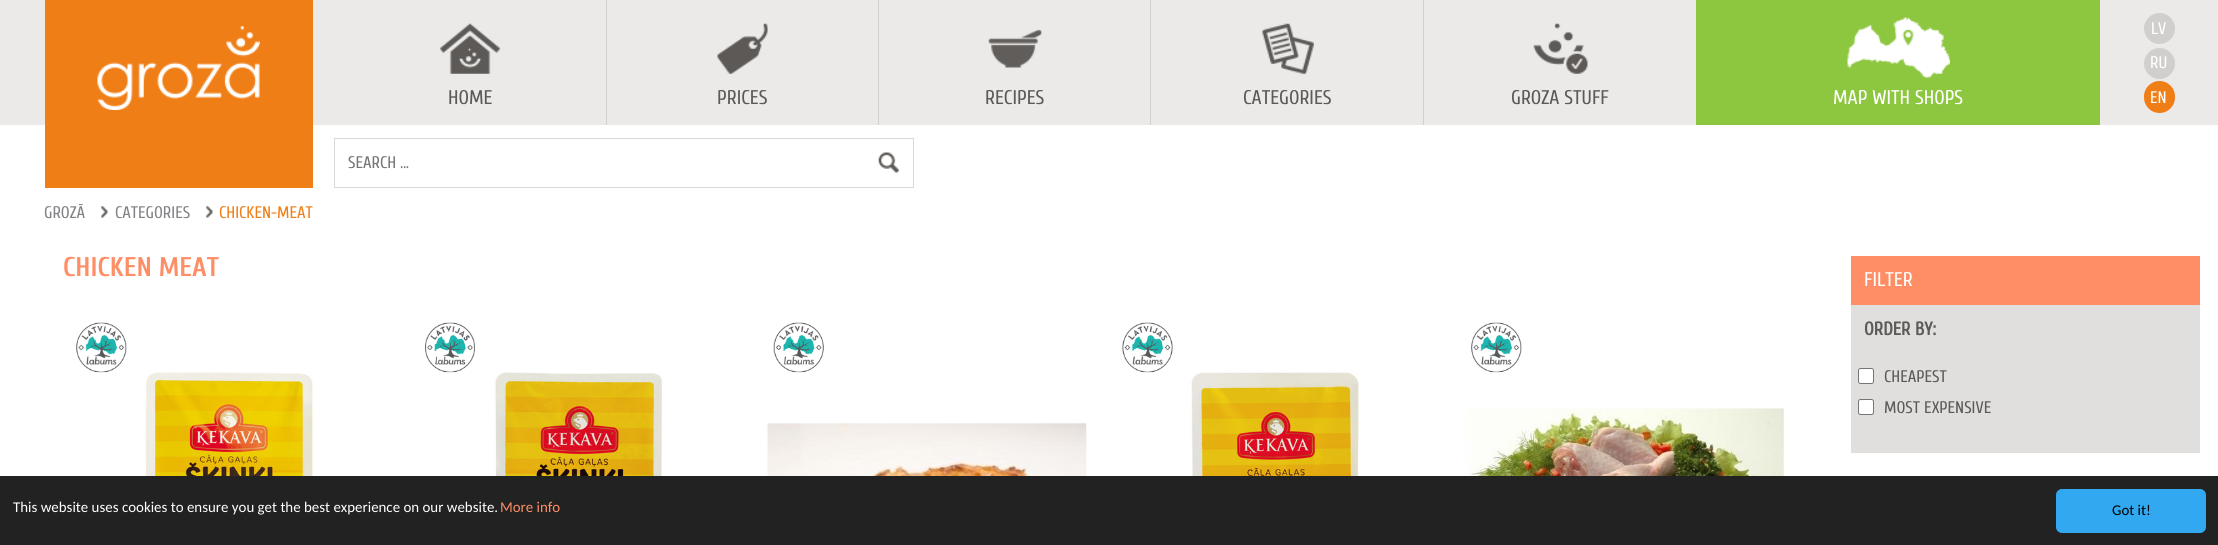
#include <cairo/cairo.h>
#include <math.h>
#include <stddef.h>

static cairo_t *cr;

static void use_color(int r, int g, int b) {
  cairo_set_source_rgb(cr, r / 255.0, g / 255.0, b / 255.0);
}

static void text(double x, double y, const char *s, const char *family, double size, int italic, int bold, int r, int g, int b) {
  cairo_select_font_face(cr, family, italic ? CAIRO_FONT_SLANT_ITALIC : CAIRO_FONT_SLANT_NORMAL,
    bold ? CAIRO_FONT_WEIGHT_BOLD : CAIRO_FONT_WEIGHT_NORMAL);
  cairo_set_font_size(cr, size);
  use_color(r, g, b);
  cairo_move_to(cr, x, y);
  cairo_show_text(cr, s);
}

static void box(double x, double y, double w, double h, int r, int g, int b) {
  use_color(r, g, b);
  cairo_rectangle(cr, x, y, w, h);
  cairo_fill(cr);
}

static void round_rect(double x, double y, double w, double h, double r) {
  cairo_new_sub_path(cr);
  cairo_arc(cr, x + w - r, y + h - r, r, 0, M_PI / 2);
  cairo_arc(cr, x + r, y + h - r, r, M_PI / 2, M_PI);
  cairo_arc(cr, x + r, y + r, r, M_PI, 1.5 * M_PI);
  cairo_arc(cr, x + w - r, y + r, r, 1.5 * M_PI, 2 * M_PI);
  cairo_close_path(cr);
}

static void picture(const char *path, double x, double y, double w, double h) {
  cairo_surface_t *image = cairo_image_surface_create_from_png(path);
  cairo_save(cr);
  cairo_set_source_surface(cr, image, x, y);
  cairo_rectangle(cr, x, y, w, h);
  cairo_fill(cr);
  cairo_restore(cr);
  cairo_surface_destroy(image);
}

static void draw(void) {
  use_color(255, 255, 255);
  cairo_paint(cr);
  box(0, 0, 2218, 125, 235, 234, 233);
  box(45, 0, 268, 188, 239, 126, 23);
  picture("img_01.png", 97, 26, 163, 84);
  box(606, 0, 1, 125, 208, 207, 205);
  picture("img_02.png", 439, 23, 62, 51);
  box(878, 0, 1, 125, 208, 207, 205);
  picture("img_03.png", 717, 23, 51, 51);
  box(1150, 0, 1, 125, 208, 207, 205);
  picture("img_04.png", 988, 29, 54, 39);
  box(1423, 0, 1, 125, 208, 207, 205);
  picture("img_05.png", 1262, 23, 52, 51);
  picture("img_06.png", 1533, 23, 55, 51);
  box(1696, 0, 404, 125, 141, 198, 63);
  picture("img_07.png", 1847, 17, 103, 61);
  use_color(208, 207, 205);
  cairo_arc(cr, 2159.5, 28.5, 15.5, 0, 2 * M_PI);
  cairo_fill(cr);
  cairo_arc(cr, 2159.5, 63.5, 15.5, 0, 2 * M_PI);
  cairo_fill(cr);
  use_color(239, 126, 23);
  round_rect(2144, 81, 31, 32, 15.5);
  cairo_fill(cr);
  cairo_rectangle(cr, 334.5, 138.5, 579, 49);
  use_color(218, 217, 215);
  cairo_set_line_width(cr, 1);
  cairo_stroke(cr);
  picture("img_08.png", 878, 152, 21, 21);
  picture("img_09.png", 101, 206, 7, 12);
  picture("img_09.png", 206, 206, 7, 12);
  picture("img_10.png", 76, 322, 51, 51);
  picture("img_11.png", 96, 372, 217, 104);
  picture("img_12.png", 425, 322, 50, 51);
  picture("img_13.png", 445, 372, 218, 104);
  picture("img_14.png", 773, 322, 51, 51);
  picture("img_15.png", 767, 372, 320, 104);
  picture("img_16.png", 1122, 322, 51, 51);
  picture("img_17.png", 1142, 372, 217, 104);
  picture("img_18.png", 1471, 322, 51, 51);
  picture("img_19.png", 1465, 372, 319, 104);
  box(0, 476, 2218, 69, 34, 34, 34);
  use_color(49, 168, 240);
  round_rect(2056, 489, 150, 44, 6);
  cairo_fill(cr);
  box(1851, 305, 349, 148, 224, 223, 222);
  box(1851, 256, 349, 49, 255, 142, 102);
  use_color(255, 255, 255);
  round_rect(1858.5, 368.5, 15, 15, 2);
  cairo_fill_preserve(cr);
  use_color(118, 118, 118);
  cairo_stroke(cr);
  use_color(255, 255, 255);
  round_rect(1858.5, 399.5, 15, 15, 2);
  cairo_fill_preserve(cr);
  use_color(118, 118, 118);
  cairo_stroke(cr);
  text(448, 104, "HOME", "Cuprum", 19.75, 0, 0, 92, 89, 86);
  text(717, 104, "PRICES", "Cuprum", 19.75, 0, 0, 92, 89, 86);
  text(985, 104, "RECIPES", "Cuprum", 19.75, 0, 0, 92, 89, 86);
  text(1243, 104, "CATEGORIES", "Cuprum", 19.75, 0, 0, 92, 89, 86);
  text(1511, 104, "GROZA STUFF", "Cuprum", 19.75, 0, 0, 92, 89, 86);
  text(1833, 104, "MAP WITH SHOPS", "Cuprum", 19.75, 0, 0, 255, 255, 255);
  text(2151, 34, "LV", "Cuprum", 16.75, 0, 0, 255, 255, 255);
  text(2150, 68, "RU", "Cuprum", 16.75, 0, 0, 255, 255, 255);
  text(2150, 103, "EN", "Cuprum", 16.75, 0, 0, 255, 255, 255);
  text(348, 168, "SEARCH ...", "Cuprum", 16.75, 0, 0, 117, 117, 117);
  text(44, 218, "GROZĀ", "Cuprum", 16.75, 0, 0, 128, 130, 133);
  text(115, 218, "CATEGORIES", "Cuprum", 16.75, 0, 0, 128, 130, 133);
  text(219, 218, "CHICKEN-MEAT", "Cuprum", 16.75, 0, 0, 239, 126, 23);
  text(63, 276, "CHICKEN MEAT", "Cuprum", 27, 0, 1, 255, 142, 102);
  text(13, 512, "This website uses cookies to ensure you get the best experience on our website.", "Carlito", 14.9, 0, 0, 255, 255, 255);
  text(500, 512, "More info", "Carlito", 14.9, 0, 0, 255, 142, 102);
  text(2112, 515, "Got it!", "Carlito", 14.9, 0, 0, 0, 0, 0);
  text(1864, 286, "FILTER", "Cuprum", 19.75, 0, 0, 255, 255, 255);
  text(1864, 335, "ORDER BY:", "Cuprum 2", 18.5, 0, 1, 92, 89, 86);
  text(1884, 382, "CHEAPEST", "Cuprum", 16.75, 0, 0, 92, 89, 86);
  text(1884, 413, "MOST EXPENSIVE", "Cuprum", 16.75, 0, 0, 92, 89, 86);
}

int main(void) {
  cairo_surface_t *surface = cairo_image_surface_create(CAIRO_FORMAT_RGB24, 2218, 545);
  cr = cairo_create(surface);
  cairo_font_options_t *options = cairo_font_options_create();
  cairo_font_options_set_hint_metrics(options, CAIRO_HINT_METRICS_OFF);
  cairo_font_options_set_hint_style(options, CAIRO_HINT_STYLE_NONE);
  cairo_set_font_options(cr, options);
  cairo_set_miter_limit(cr, 4);
  draw();
  cairo_surface_write_to_png(surface, "out.png");
  cairo_font_options_destroy(options);
  cairo_destroy(cr);
  cairo_surface_destroy(surface);
  return 0;
}
